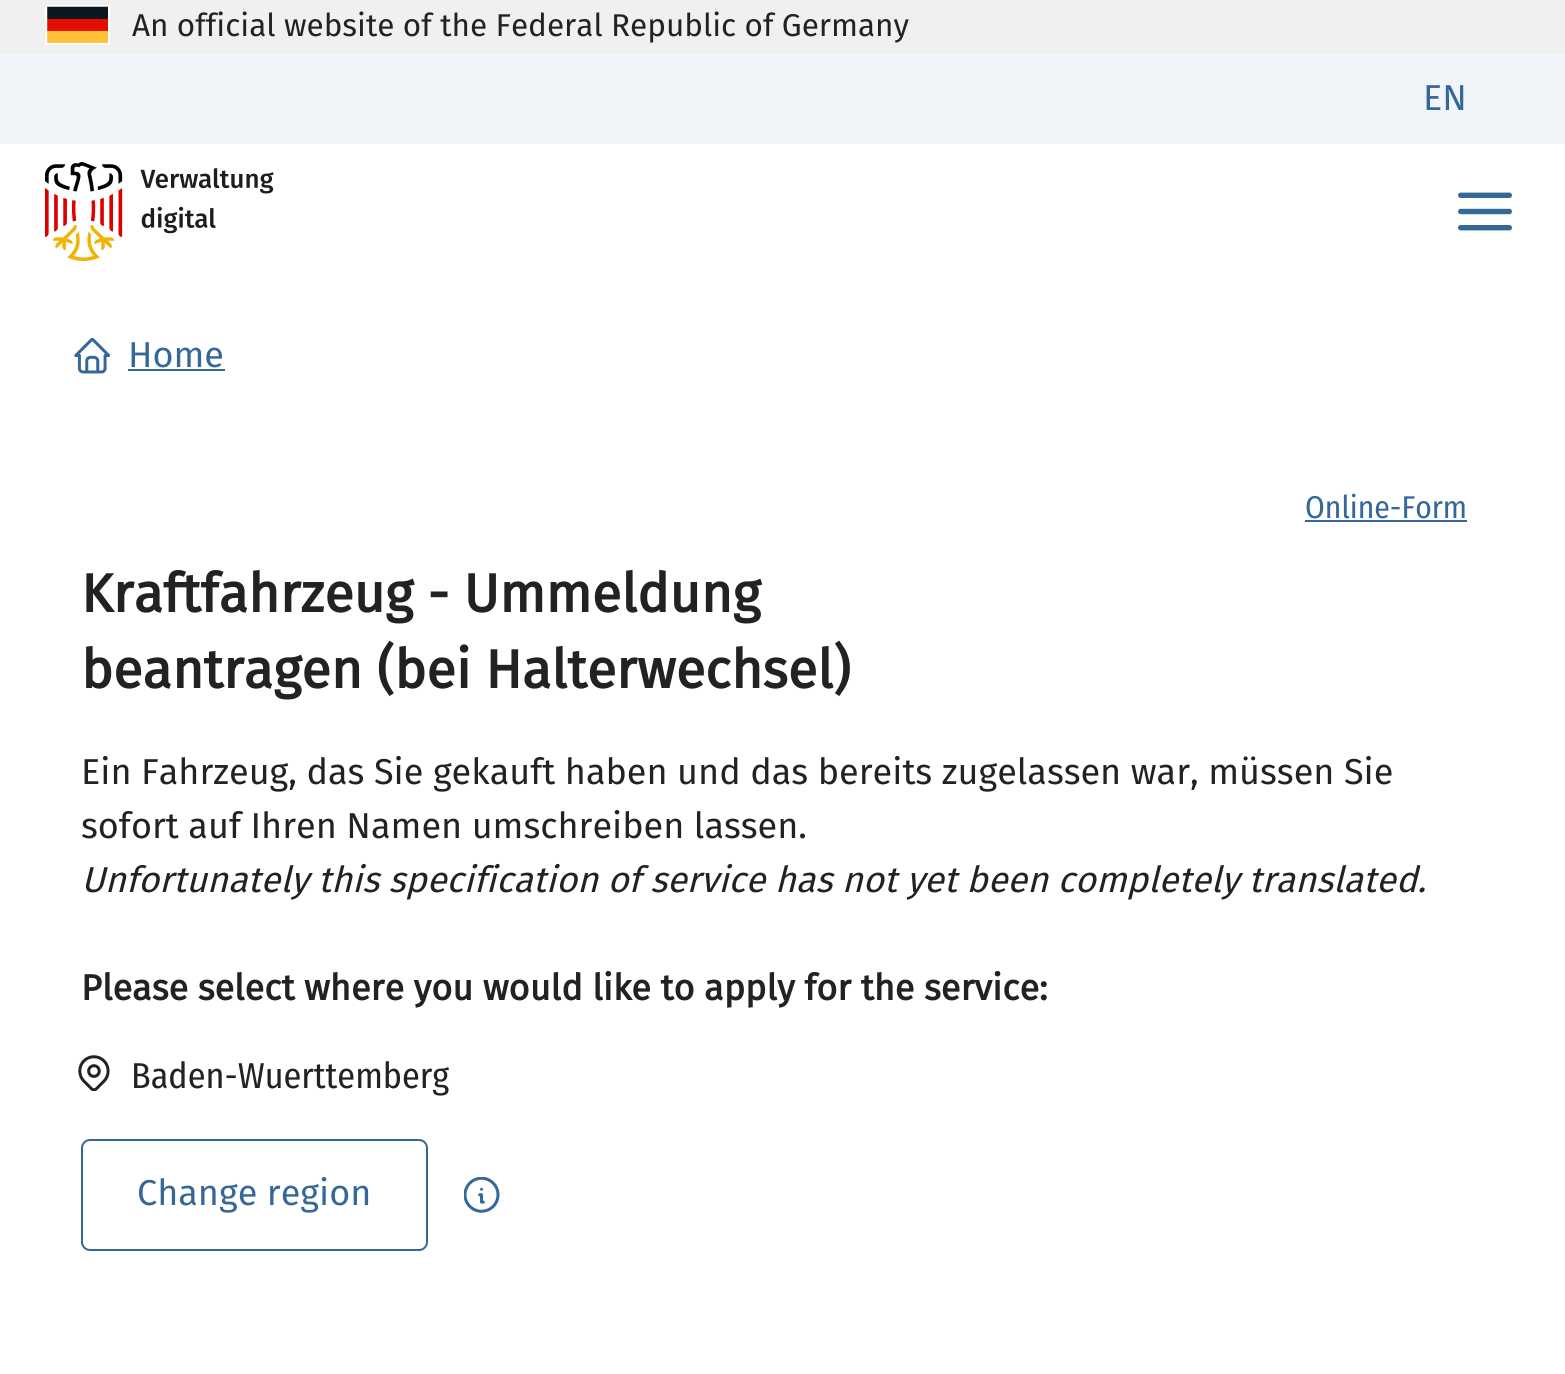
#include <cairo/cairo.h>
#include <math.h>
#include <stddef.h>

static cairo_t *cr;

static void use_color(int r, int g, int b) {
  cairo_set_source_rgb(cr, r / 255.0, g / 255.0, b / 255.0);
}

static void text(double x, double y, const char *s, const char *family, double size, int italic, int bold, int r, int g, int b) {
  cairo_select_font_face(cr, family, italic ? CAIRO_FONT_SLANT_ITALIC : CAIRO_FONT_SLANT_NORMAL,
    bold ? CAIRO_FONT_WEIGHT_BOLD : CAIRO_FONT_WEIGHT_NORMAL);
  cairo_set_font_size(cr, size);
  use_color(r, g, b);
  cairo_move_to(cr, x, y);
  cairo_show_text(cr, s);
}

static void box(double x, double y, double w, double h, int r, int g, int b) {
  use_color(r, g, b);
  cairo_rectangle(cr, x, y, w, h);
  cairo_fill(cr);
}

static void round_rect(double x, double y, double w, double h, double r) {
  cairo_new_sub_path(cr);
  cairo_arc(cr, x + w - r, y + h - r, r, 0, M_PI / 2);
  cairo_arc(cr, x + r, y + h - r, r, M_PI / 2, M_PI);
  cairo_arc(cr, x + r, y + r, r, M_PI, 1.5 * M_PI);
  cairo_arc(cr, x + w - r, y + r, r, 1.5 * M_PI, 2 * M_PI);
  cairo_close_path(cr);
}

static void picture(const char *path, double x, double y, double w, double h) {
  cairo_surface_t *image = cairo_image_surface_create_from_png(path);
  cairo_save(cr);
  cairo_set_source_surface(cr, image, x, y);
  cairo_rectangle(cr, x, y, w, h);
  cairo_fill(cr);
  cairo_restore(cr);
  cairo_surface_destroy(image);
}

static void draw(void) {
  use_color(255, 255, 255);
  cairo_paint(cr);
  box(0, 0, 1565, 54, 240, 240, 240);
  cairo_rectangle(cr, 46, 6, 63, 38);
  use_color(255, 255, 255);
  cairo_stroke(cr);
  picture("img_01.png", 47, 6, 61, 37);
  box(0, 54, 1565, 90, 241, 244, 248);
  picture("img_02.png", 45, 162, 229, 99);
  picture("img_03.png", 1458, 192, 54, 39);
  picture("img_04.png", 74, 338, 36, 36);
  box(128, 369, 97, 2, 53, 103, 153);
  box(1305, 520, 162, 2, 53, 103, 153);
  picture("img_05.png", 78, 1055, 32, 36);
  round_rect(82, 1140, 345, 110, 8);
  cairo_stroke(cr);
  picture("img_06.png", 464, 1177, 36, 36);
  text(132, 36, "An official website of the Federal Republic of Germany", "Fira Sans", 31.5, 0, 0, 34, 34, 34);
  text(1423, 110, "EN", "Fira Sans", 36, 0, 0, 53, 103, 153);
  text(128, 367, "Home", "Fira Sans", 36, 0, 0, 53, 103, 153);
  text(1305, 518, "Online-Form", "Fira Sans Condensed", 31.5, 0, 0, 53, 103, 153);
  text(81, 612, "Kraftfahrzeug - Ummeldung", "Fira Sans", 54, 0, 1, 34, 34, 34);
  text(81, 688, "beantragen (bei Halterwechsel)", "Fira Sans", 54, 0, 1, 34, 34, 34);
  text(81, 784, "Ein Fahrzeug, das Sie gekauft haben und das bereits zugelassen war, müssen Sie", "Fira Sans", 36, 0, 0, 34, 34, 34);
  text(81, 838, "sofort auf Ihren Namen umschreiben lassen.", "Fira Sans", 36, 0, 0, 34, 34, 34);
  text(81, 892, "Unfortunately this specification of service has not yet been completely translated.", "Fira Sans", 36, 1, 0, 34, 34, 34);
  text(81, 1000, "Please select where you would like to apply for the service:", "Fira Sans", 36, 0, 1, 34, 34, 34);
  text(131, 1088, "Baden-Wuerttemberg", "Fira Sans Condensed", 36, 0, 0, 34, 34, 34);
  text(137, 1205, "Change region", "Fira Sans", 36, 0, 0, 53, 103, 153);
}

int main(void) {
  cairo_surface_t *surface = cairo_image_surface_create(CAIRO_FORMAT_RGB24, 1565, 1374);
  cr = cairo_create(surface);
  cairo_font_options_t *options = cairo_font_options_create();
  cairo_font_options_set_hint_metrics(options, CAIRO_HINT_METRICS_OFF);
  cairo_font_options_set_hint_style(options, CAIRO_HINT_STYLE_NONE);
  cairo_set_font_options(cr, options);
  cairo_set_miter_limit(cr, 4);
  draw();
  cairo_surface_write_to_png(surface, "out.png");
  cairo_font_options_destroy(options);
  cairo_destroy(cr);
  cairo_surface_destroy(surface);
  return 0;
}
